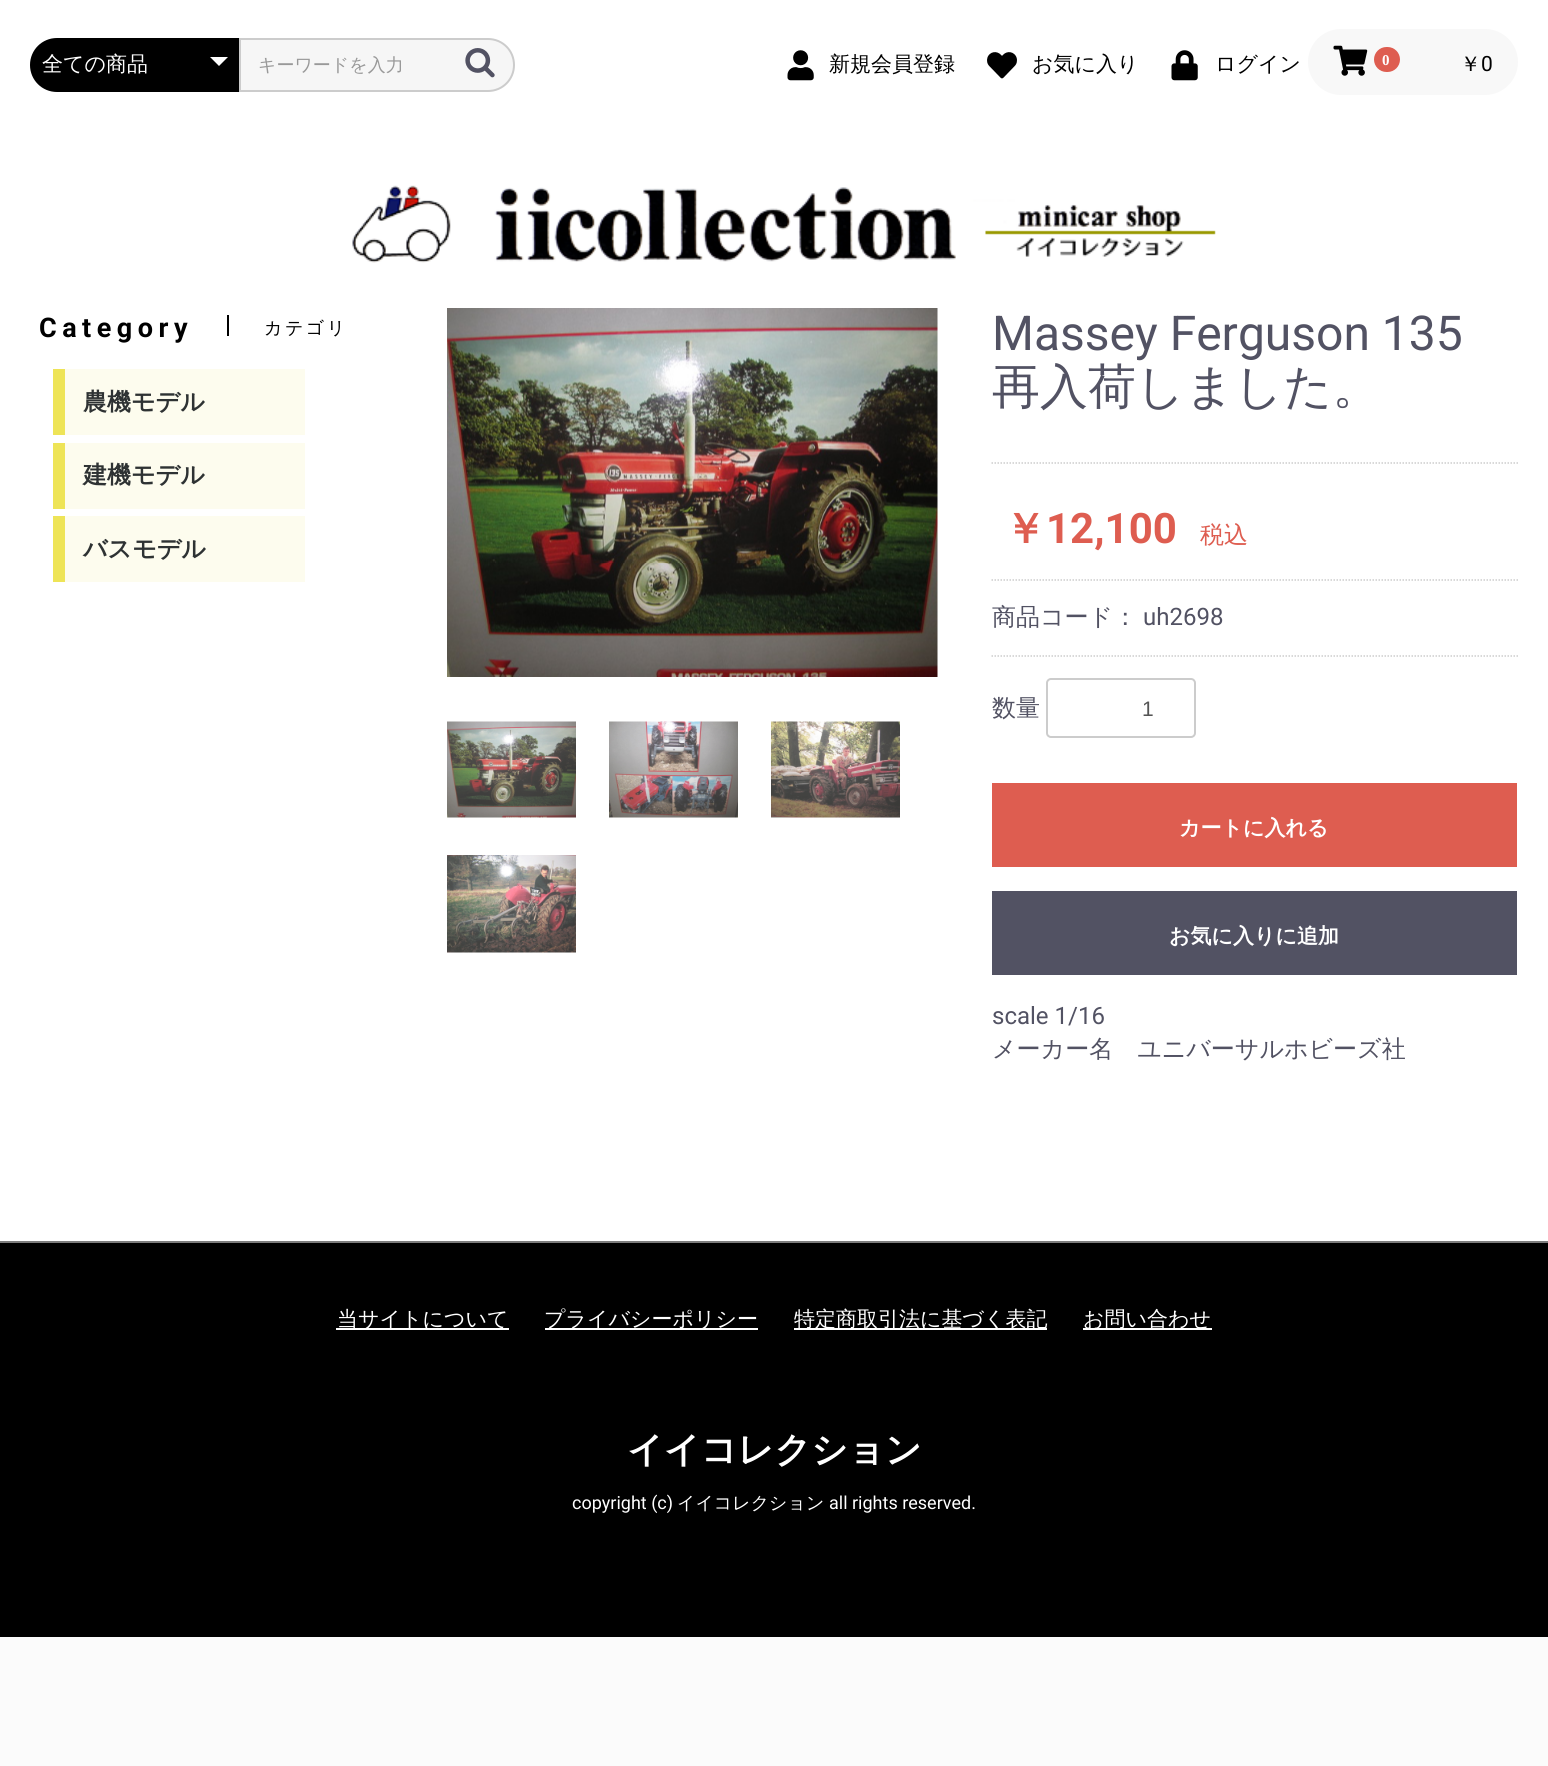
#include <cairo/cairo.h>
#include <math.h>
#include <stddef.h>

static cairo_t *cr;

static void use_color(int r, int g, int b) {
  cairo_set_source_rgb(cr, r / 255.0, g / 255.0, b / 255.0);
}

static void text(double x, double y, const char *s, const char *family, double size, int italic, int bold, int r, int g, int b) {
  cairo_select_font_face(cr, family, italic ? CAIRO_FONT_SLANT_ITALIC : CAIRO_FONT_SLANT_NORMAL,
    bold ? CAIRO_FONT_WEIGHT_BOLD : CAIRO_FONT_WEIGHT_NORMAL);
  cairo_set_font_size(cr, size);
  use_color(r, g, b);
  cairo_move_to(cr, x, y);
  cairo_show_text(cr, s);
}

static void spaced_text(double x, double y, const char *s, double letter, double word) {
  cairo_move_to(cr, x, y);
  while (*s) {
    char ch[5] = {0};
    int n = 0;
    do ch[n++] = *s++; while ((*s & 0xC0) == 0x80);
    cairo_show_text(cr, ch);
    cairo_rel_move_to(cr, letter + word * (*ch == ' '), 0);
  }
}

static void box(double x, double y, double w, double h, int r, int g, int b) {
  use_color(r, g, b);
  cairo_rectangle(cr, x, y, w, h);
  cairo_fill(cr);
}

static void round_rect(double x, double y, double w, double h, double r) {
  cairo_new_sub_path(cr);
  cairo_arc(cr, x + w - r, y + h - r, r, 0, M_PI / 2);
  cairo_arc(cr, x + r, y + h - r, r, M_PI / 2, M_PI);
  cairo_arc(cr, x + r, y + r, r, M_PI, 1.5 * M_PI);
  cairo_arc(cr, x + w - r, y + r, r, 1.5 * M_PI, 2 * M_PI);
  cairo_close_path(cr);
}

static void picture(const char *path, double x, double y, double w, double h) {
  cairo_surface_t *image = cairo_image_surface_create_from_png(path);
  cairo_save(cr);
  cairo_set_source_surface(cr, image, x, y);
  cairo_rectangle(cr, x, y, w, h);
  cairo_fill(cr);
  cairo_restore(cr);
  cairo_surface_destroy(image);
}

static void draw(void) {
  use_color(251, 251, 251);
  cairo_paint(cr);
  box(0, 0, 1548, 1241, 255, 255, 255);
  use_color(0, 0, 0);
  cairo_new_path(cr);
  cairo_move_to(cr, 57, 38);
  cairo_line_to(cr, 239, 38);
  cairo_line_to(cr, 239, 92);
  cairo_line_to(cr, 57, 92);
  cairo_curve_to(cr, 42, 92, 30, 80, 30, 65);
  cairo_curve_to(cr, 30, 50, 42, 38, 57, 38);
  cairo_close_path(cr);
  cairo_fill(cr);
  use_color(255, 255, 255);
  cairo_new_path(cr);
  cairo_move_to(cr, 210, 57);
  cairo_line_to(cr, 228, 57);
  cairo_line_to(cr, 219, 66);
  cairo_close_path(cr);
  cairo_fill(cr);
  use_color(246, 246, 246);
  cairo_new_path(cr);
  cairo_move_to(cr, 240, 39);
  cairo_line_to(cr, 488, 39);
  cairo_curve_to(cr, 502.5, 39, 514, 50.5, 514, 65);
  cairo_curve_to(cr, 514, 79.5, 502.5, 91, 488, 91);
  cairo_line_to(cr, 240, 91);
  cairo_close_path(cr);
  cairo_fill_preserve(cr);
  use_color(204, 204, 204);
  cairo_stroke(cr);
  picture("img_01.png", 465, 48, 30, 30);
  picture("img_02.png", 787, 50, 27, 31);
  picture("img_03.png", 987, 52, 30, 27);
  picture("img_04.png", 1171, 50, 27, 31);
  use_color(248, 248, 248);
  round_rect(1308, 29, 210, 66, 33);
  cairo_fill(cr);
  picture("img_05.png", 1333, 45, 35, 31);
  use_color(222, 93, 80);
  round_rect(1374, 47, 26, 25, 12.5);
  cairo_fill(cr);
  picture("img_06.png", 352, 185, 864, 78);
  box(227, 315, 2, 21, 0, 0, 0);
  box(53, 369, 12, 66, 238, 228, 87);
  box(65, 369, 240, 66, 253, 252, 238);
  box(53, 443, 12, 66, 238, 228, 87);
  box(65, 443, 240, 66, 253, 252, 238);
  box(53, 516, 12, 66, 238, 228, 87);
  box(65, 516, 240, 66, 253, 252, 238);
  picture("img_07.png", 447, 308, 491, 369);
  picture("img_08.png", 447, 721, 129, 97);
  picture("img_09.png", 609, 721, 129, 97);
  picture("img_10.png", 771, 721, 129, 97);
  picture("img_11.png", 447, 855, 129, 98);
  cairo_new_path(cr);
  cairo_move_to(cr, 991.5, 463);
  cairo_line_to(cr, 1518, 463);
  use_color(204, 204, 204);
  cairo_set_line_width(cr, 1.5);
  cairo_set_dash(cr, (double[]){1.5, 1.5}, 2, 0);
  cairo_stroke(cr);
  cairo_new_path(cr);
  cairo_move_to(cr, 991.5, 580);
  cairo_line_to(cr, 1518, 580);
  cairo_stroke(cr);
  cairo_new_path(cr);
  cairo_move_to(cr, 991.5, 656);
  cairo_line_to(cr, 1518, 656);
  cairo_stroke(cr);
  round_rect(1047, 679, 148, 58, 4);
  cairo_set_line_width(cr, 2);
  cairo_set_dash(cr, NULL, 0, 0);
  cairo_stroke(cr);
  box(992, 783, 525, 84, 222, 93, 80);
  box(992, 891, 525, 84, 82, 82, 99);
  box(0, 1243, 1548, 394, 0, 0, 0);
  box(0, 1241, 1548, 2, 125, 125, 125);
  box(336, 1328, 173, 2, 255, 255, 255);
  box(545, 1328, 213, 2, 255, 255, 255);
  box(794, 1328, 253, 2, 255, 255, 255);
  box(1083, 1328, 129, 2, 255, 255, 255);
  text(42, 71, "全ての商品", "WenQuanYi Zen Hei Medium", 21, 0, 0, 255, 255, 255);
  text(258, 71, "キーワードを入力", "WenQuanYi Zen Hei Medium", 18, 0, 0, 153, 153, 153);
  text(829, 71, "新規会員登録", "WenQuanYi Zen Hei Medium", 21, 0, 0, 0, 0, 0);
  text(1032, 71, "お気に入り", "WenQuanYi Zen Hei Medium", 21, 0, 0, 0, 0, 0);
  text(1215, 71, "ログイン", "WenQuanYi Zen Hei Medium", 21, 0, 0, 0, 0, 0);
  text(1382, 65, "0", "Liberation Serif", 15, 0, 1, 255, 255, 255);
  text(1460, 71, "￥", "WenQuanYi Zen Hei Medium", 21, 0, 0, 0, 0, 0);
  text(1481, 71, "0", "Roboto", 21, 0, 0, 0, 0, 0);
  cairo_select_font_face(cr, "Roboto", CAIRO_FONT_SLANT_NORMAL, CAIRO_FONT_WEIGHT_BOLD);
  cairo_set_font_size(cr, 27);
  spaced_text(39, 337, "Category", 5.5, 0);
  cairo_select_font_face(cr, "WenQuanYi Zen Hei Medium", CAIRO_FONT_SLANT_NORMAL, CAIRO_FONT_WEIGHT_NORMAL);
  cairo_set_font_size(cr, 18);
  spaced_text(264, 334, "カテゴリ", 2.5, 0);
  text(83, 410, "農機モデル", "WenQuanYi Zen Hei", 24, 0, 1, 46, 50, 51);
  text(83, 483, "建機モデル", "WenQuanYi Zen Hei", 24, 0, 1, 46, 50, 51);
  text(83, 557, "バスモデル", "WenQuanYi Zen Hei", 24, 0, 1, 46, 50, 51);
  text(992, 350, "Massey Ferguson 135", "Roboto", 48, 0, 0, 82, 82, 99);
  text(992, 403, "再入荷しました。", "WenQuanYi Zen Hei Medium", 48, 0, 0, 82, 82, 99);
  text(1004, 543, "￥", "WenQuanYi Zen Hei", 42, 0, 1, 222, 93, 80);
  text(1046, 543, "12,100", "Roboto", 42, 0, 1, 222, 93, 80);
  text(1200, 543, "税込", "WenQuanYi Zen Hei Medium", 24, 0, 0, 222, 93, 80);
  text(992, 625, "商品コード：", "WenQuanYi Zen Hei Medium", 24, 0, 0, 82, 82, 99);
  text(1143, 625, "uh2698", "Roboto", 24, 0, 0, 82, 82, 99);
  text(992, 716, "数量", "WenQuanYi Zen Hei Medium", 24, 0, 0, 82, 82, 99);
  text(1142, 716, "1", "Liberation Sans", 21, 0, 0, 85, 85, 85);
  text(1179, 835, "カートに入れる", "WenQuanYi Zen Hei", 21, 0, 1, 255, 255, 255);
  text(1169, 943, "お気に入りに追加", "WenQuanYi Zen Hei", 21, 0, 1, 255, 255, 255);
  text(992, 1024, "scale 1/16", "Roboto", 24, 0, 0, 82, 82, 99);
  text(992, 1057, "メーカー名　ユニバーサルホビーズ社", "WenQuanYi Zen Hei Medium", 24, 0, 0, 82, 82, 99);
  text(337, 1326, "当サイトについて", "WenQuanYi Zen Hei Medium", 21, 0, 0, 255, 255, 255);
  text(544, 1326, "プライバシーポリシー", "WenQuanYi Zen Hei Medium", 21, 0, 0, 255, 255, 255);
  text(794, 1326, "特定商取引法に基づく表記", "WenQuanYi Zen Hei Medium", 21, 0, 0, 255, 255, 255);
  text(1083, 1326, "お問い合わせ", "WenQuanYi Zen Hei Medium", 21, 0, 0, 255, 255, 255);
  text(627, 1462, "イイコレクション", "WenQuanYi Zen Hei", 36, 0, 1, 255, 255, 255);
  text(572, 1509, "copyright (c)", "Roboto", 18, 0, 0, 255, 255, 255);
  text(677, 1509, "イイコレクション", "WenQuanYi Zen Hei Medium", 18, 0, 0, 255, 255, 255);
  text(829, 1509, "all rights reserved.", "Roboto", 18, 0, 0, 255, 255, 255);
}

int main(void) {
  cairo_surface_t *surface = cairo_image_surface_create(CAIRO_FORMAT_RGB24, 1548, 1766);
  cr = cairo_create(surface);
  cairo_font_options_t *options = cairo_font_options_create();
  cairo_font_options_set_hint_metrics(options, CAIRO_HINT_METRICS_OFF);
  cairo_font_options_set_hint_style(options, CAIRO_HINT_STYLE_NONE);
  cairo_set_font_options(cr, options);
  cairo_set_miter_limit(cr, 4);
  draw();
  cairo_surface_write_to_png(surface, "out.png");
  cairo_font_options_destroy(options);
  cairo_destroy(cr);
  cairo_surface_destroy(surface);
  return 0;
}
